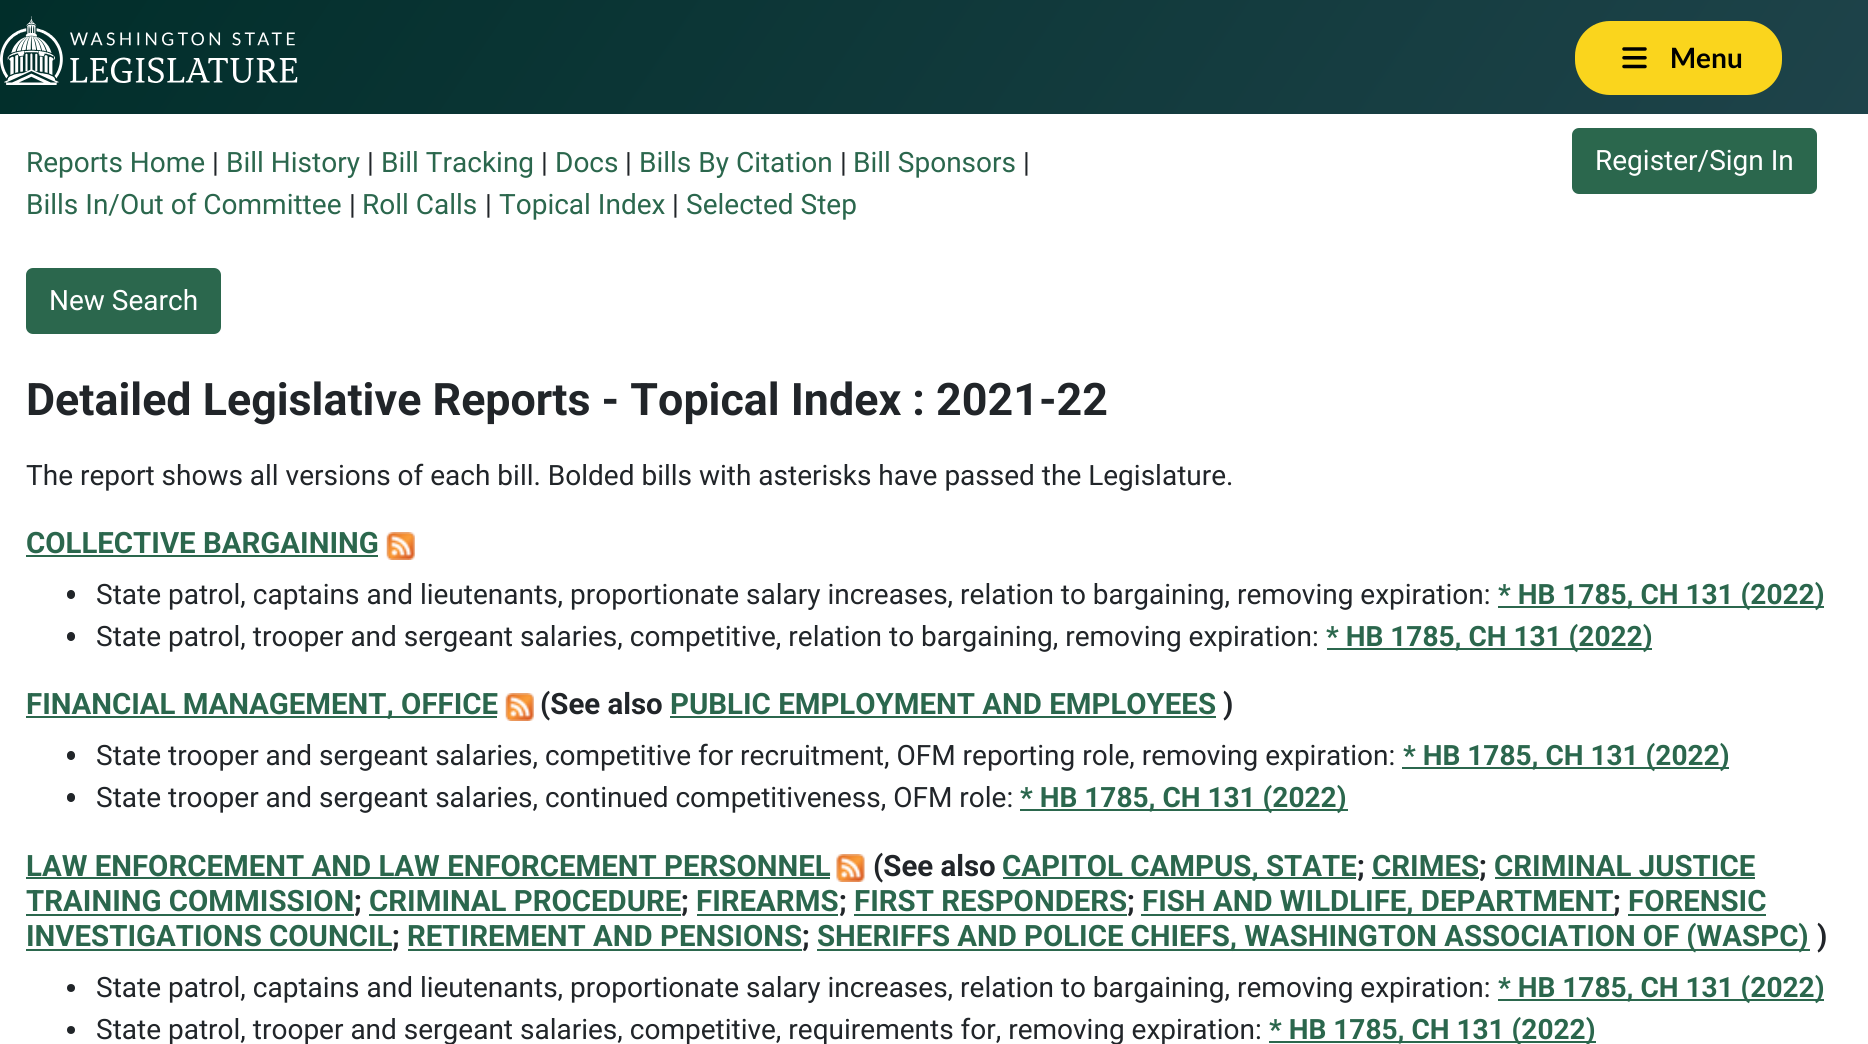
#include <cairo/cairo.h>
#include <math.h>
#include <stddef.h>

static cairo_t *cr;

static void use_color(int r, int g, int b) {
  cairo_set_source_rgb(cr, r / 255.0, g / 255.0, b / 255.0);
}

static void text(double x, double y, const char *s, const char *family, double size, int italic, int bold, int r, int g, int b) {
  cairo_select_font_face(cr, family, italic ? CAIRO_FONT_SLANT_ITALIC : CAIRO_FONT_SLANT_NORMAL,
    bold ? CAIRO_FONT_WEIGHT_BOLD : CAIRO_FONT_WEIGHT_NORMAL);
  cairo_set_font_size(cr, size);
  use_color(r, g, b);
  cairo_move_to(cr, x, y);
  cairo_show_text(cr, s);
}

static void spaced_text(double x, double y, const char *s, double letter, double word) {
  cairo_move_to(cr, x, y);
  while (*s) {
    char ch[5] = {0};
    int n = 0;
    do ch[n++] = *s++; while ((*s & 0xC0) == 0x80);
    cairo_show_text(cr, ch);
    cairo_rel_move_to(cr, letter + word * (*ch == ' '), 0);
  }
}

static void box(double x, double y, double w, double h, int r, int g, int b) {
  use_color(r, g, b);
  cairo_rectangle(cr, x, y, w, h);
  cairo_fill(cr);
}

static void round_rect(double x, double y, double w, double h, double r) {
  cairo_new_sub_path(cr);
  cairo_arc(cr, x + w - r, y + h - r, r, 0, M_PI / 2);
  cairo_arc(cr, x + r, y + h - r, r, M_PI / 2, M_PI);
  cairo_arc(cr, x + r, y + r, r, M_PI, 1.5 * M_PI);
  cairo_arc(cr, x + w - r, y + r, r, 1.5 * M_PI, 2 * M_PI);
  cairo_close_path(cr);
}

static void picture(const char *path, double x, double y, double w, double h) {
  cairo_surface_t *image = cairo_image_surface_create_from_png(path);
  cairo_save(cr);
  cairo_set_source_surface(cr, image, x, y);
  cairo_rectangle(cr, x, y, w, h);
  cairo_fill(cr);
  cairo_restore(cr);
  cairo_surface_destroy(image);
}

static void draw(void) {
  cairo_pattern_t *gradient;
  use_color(255, 255, 255);
  cairo_paint(cr);
  gradient = cairo_pattern_create_linear(1603, 508, 266, -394);
  cairo_pattern_add_color_stop_rgba(gradient, 0, 0.118, 0.263, 0.29, 1);
  cairo_pattern_add_color_stop_rgba(gradient, 1, 0.004, 0.18, 0.165, 1);
  cairo_set_source(cr, gradient);
  cairo_pattern_destroy(gradient);
  cairo_rectangle(cr, 0, 0, 1868, 114);
  cairo_fill(cr);
  picture("img_01.png", 0, 16, 298, 69);
  use_color(250, 213, 29);
  round_rect(1577, 23, 203, 70, 33);
  cairo_fill_preserve(cr);
  cairo_set_line_width(cr, 4);
  cairo_stroke(cr);
  picture("img_02.png", 1622, 47, 25, 22);
  use_color(43, 103, 77);
  round_rect(1573, 129, 243, 64, 6);
  cairo_fill_preserve(cr);
  cairo_set_line_width(cr, 2);
  cairo_stroke(cr);
  round_rect(27, 269, 193, 64, 6);
  cairo_fill_preserve(cr);
  cairo_stroke(cr);
  box(26, 555, 352, 2, 43, 103, 77);
  picture("img_03.png", 386, 532, 29, 28);
  use_color(33, 37, 41);
  round_rect(67, 590, 8, 9, 4);
  cairo_fill(cr);
  box(1498, 606, 326, 2, 43, 103, 77);
  use_color(33, 37, 41);
  round_rect(67, 632, 8, 9, 4);
  cairo_fill(cr);
  box(1327, 648, 325, 2, 43, 103, 77);
  box(26, 716, 471, 2, 43, 103, 77);
  picture("img_03.png", 505, 693, 29, 28);
  box(670, 716, 546, 2, 43, 103, 77);
  use_color(33, 37, 41);
  round_rect(67, 751, 8, 9, 4);
  cairo_fill(cr);
  box(1402, 767, 327, 2, 43, 103, 77);
  use_color(33, 37, 41);
  round_rect(67, 793, 8, 9, 4);
  cairo_fill(cr);
  box(1020, 809, 328, 2, 43, 103, 77);
  box(26, 877, 804, 2, 43, 103, 77);
  picture("img_04.png", 836, 854, 29, 28);
  box(1003, 877, 353, 2, 43, 103, 77);
  box(1372, 877, 107, 2, 43, 103, 77);
  box(1495, 877, 260, 2, 43, 103, 77);
  box(26, 914, 328, 2, 43, 103, 77);
  box(369, 914, 312, 2, 43, 103, 77);
  box(697, 914, 141, 2, 43, 103, 77);
  box(854, 914, 273, 2, 43, 103, 77);
  box(1141, 914, 473, 2, 43, 103, 77);
  box(1628, 914, 138, 2, 43, 103, 77);
  box(26, 949, 366, 2, 43, 103, 77);
  box(408, 949, 394, 2, 43, 103, 77);
  box(817, 949, 993, 2, 43, 103, 77);
  use_color(33, 37, 41);
  cairo_arc(cr, 71, 988, 4, 0, 2 * M_PI);
  cairo_fill(cr);
  box(1498, 999, 326, 2, 43, 103, 77);
  use_color(33, 37, 41);
  cairo_arc(cr, 71, 1030, 4, 0, 2 * M_PI);
  cairo_fill(cr);
  box(1269, 1041, 327, 2, 43, 103, 77);
  text(1670, 68, "Menu", "Lato", 28, 0, 1, 0, 0, 0);
  text(26, 172, "Reports Home", "Roboto", 28, 0, 0, 43, 103, 77);
  text(212, 172, "|", "Roboto", 28, 0, 0, 33, 37, 41);
  text(226, 172, "Bill History", "Roboto", 28, 0, 0, 43, 103, 77);
  text(367, 172, "|", "Roboto", 28, 0, 0, 33, 37, 41);
  text(381, 172, "Bill Tracking", "Roboto", 28, 0, 0, 43, 103, 77);
  text(541, 172, "|", "Roboto", 28, 0, 0, 33, 37, 41);
  text(555, 172, "Docs", "Roboto", 28, 0, 0, 43, 103, 77);
  text(625, 172, "|", "Roboto", 28, 0, 0, 33, 37, 41);
  text(639, 172, "Bills By Citation", "Roboto", 28, 0, 0, 43, 103, 77);
  text(840, 172, "|", "Roboto", 28, 0, 0, 33, 37, 41);
  text(853, 172, "Bill Sponsors", "Roboto", 28, 0, 0, 43, 103, 77);
  text(1023, 172, "|", "Roboto", 28, 0, 0, 33, 37, 41);
  text(26, 214, "Bills In/Out of Committee", "Roboto", 28, 0, 0, 43, 103, 77);
  text(349, 214, "|", "Roboto", 28, 0, 0, 33, 37, 41);
  text(362, 214, "Roll Calls", "Roboto", 28, 0, 0, 43, 103, 77);
  text(485, 214, "|", "Roboto", 28, 0, 0, 33, 37, 41);
  text(499, 214, "Topical Index", "Roboto", 28, 0, 0, 43, 103, 77);
  text(672, 214, "|", "Roboto", 28, 0, 0, 33, 37, 41);
  text(686, 214, "Selected Step", "Roboto", 28, 0, 0, 43, 103, 77);
  text(1595, 170, "Register/Sign In", "Roboto", 28, 0, 0, 255, 255, 255);
  text(49, 310, "New Search", "Roboto", 28, 0, 0, 255, 255, 255);
  text(26, 415, "Detailed Legislative Reports - Topical Index : 2021-22", "Roboto", 44.8, 0, 1, 33, 37, 41);
  text(26, 485, "The report shows all versions of each bill. Bolded bills with asterisks have passed the Legislature.", "Roboto", 28, 0, 0, 33, 37, 41);
  text(26, 553, "COLLECTIVE BARGAINING", "Roboto", 29.4, 0, 1, 43, 103, 77);
  text(96, 604, "State patrol, captains and lieutenants, proportionate salary increases, relation to bargaining, removing expiration:", "Roboto", 28, 0, 0, 33, 37, 41);
  text(1498, 604, "* HB 1785, CH 131 (2022)", "Roboto", 28, 0, 1, 43, 103, 77);
  text(96, 646, "State patrol, trooper and sergeant salaries, competitive, relation to bargaining, removing expiration:", "Roboto", 28, 0, 0, 33, 37, 41);
  text(1326, 646, "* HB 1785, CH 131 (2022)", "Roboto", 28, 0, 1, 43, 103, 77);
  text(26, 714, "FINANCIAL MANAGEMENT, OFFICE", "Roboto", 29.4, 0, 1, 43, 103, 77);
  text(540, 714, "(See also", "Roboto", 29.4, 0, 1, 33, 37, 41);
  text(670, 714, "PUBLIC EMPLOYMENT AND EMPLOYEES", "Roboto", 29.4, 0, 1, 43, 103, 77);
  text(1223, 714, ")", "Roboto", 29.4, 0, 1, 33, 37, 41);
  text(96, 765, "State trooper and sergeant salaries, competitive for recruitment, OFM reporting role, removing expiration:", "Roboto", 28, 0, 0, 33, 37, 41);
  text(1403, 765, "* HB 1785, CH 131 (2022)", "Roboto", 28, 0, 1, 43, 103, 77);
  text(96, 807, "State trooper and sergeant salaries, continued competitiveness, OFM role:", "Roboto", 28, 0, 0, 33, 37, 41);
  text(1020, 807, "* HB 1785, CH 131 (2022)", "Roboto", 28, 0, 1, 43, 103, 77);
  text(26, 876, "LAW ENFORCEMENT AND LAW ENFORCEMENT PERSONNEL", "Roboto", 29.4, 0, 1, 43, 103, 77);
  text(873, 876, "(See also", "Roboto", 29.4, 0, 1, 33, 37, 41);
  text(1002, 876, "CAPITOL CAMPUS, STATE", "Roboto", 29.4, 0, 1, 43, 103, 77);
  text(1357, 876, ";", "Roboto", 29.4, 0, 1, 33, 37, 41);
  text(1372, 876, "CRIMES", "Roboto", 29.4, 0, 1, 43, 103, 77);
  text(1479, 876, ";", "Roboto", 29.4, 0, 1, 33, 37, 41);
  text(1494, 876, "CRIMINAL JUSTICE", "Roboto", 29.4, 0, 1, 43, 103, 77);
  text(26, 911, "TRAINING COMMISSION", "Roboto", 29.4, 0, 1, 43, 103, 77);
  text(354, 911, ";", "Roboto", 29.4, 0, 1, 33, 37, 41);
  text(369, 911, "CRIMINAL PROCEDURE", "Roboto", 29.4, 0, 1, 43, 103, 77);
  text(681, 911, ";", "Roboto", 29.4, 0, 1, 33, 37, 41);
  text(696, 911, "FIREARMS", "Roboto", 29.4, 0, 1, 43, 103, 77);
  text(839, 911, ";", "Roboto", 29.4, 0, 1, 33, 37, 41);
  text(854, 911, "FIRST RESPONDERS", "Roboto", 29.4, 0, 1, 43, 103, 77);
  text(1127, 911, ";", "Roboto", 29.4, 0, 1, 33, 37, 41);
  text(1142, 911, "FISH AND WILDLIFE, DEPARTMENT", "Roboto", 29.4, 0, 1, 43, 103, 77);
  text(1613, 911, ";", "Roboto", 29.4, 0, 1, 33, 37, 41);
  text(1628, 911, "FORENSIC", "Roboto", 29.4, 0, 1, 43, 103, 77);
  text(26, 946, "INVESTIGATIONS COUNCIL", "Roboto", 29.4, 0, 1, 43, 103, 77);
  text(392, 946, ";", "Roboto", 29.4, 0, 1, 33, 37, 41);
  text(407, 946, "RETIREMENT AND PENSIONS", "Roboto", 29.4, 0, 1, 43, 103, 77);
  text(802, 946, ";", "Roboto", 29.4, 0, 1, 33, 37, 41);
  use_color(43, 103, 77);
  spaced_text(817, 946, "SHERIFFS AND POLICE CHIEFS, WASHINGTON ASSOCIATION OF (WASPC)", 0, -0.25);
  text(1817, 946, ")", "Roboto", 29.4, 0, 1, 33, 37, 41);
  text(96, 997, "State patrol, captains and lieutenants, proportionate salary increases, relation to bargaining, removing expiration:", "Roboto", 28, 0, 0, 33, 37, 41);
  text(1498, 997, "* HB 1785, CH 131 (2022)", "Roboto", 28, 0, 1, 43, 103, 77);
  text(96, 1039, "State patrol, trooper and sergeant salaries, competitive, requirements for, removing expiration:", "Roboto", 28, 0, 0, 33, 37, 41);
  text(1269, 1039, "* HB 1785, CH 131 (2022)", "Roboto", 28, 0, 1, 43, 103, 77);
}

int main(void) {
  cairo_surface_t *surface = cairo_image_surface_create(CAIRO_FORMAT_RGB24, 1868, 1044);
  cr = cairo_create(surface);
  cairo_font_options_t *options = cairo_font_options_create();
  cairo_font_options_set_hint_metrics(options, CAIRO_HINT_METRICS_OFF);
  cairo_font_options_set_hint_style(options, CAIRO_HINT_STYLE_NONE);
  cairo_set_font_options(cr, options);
  cairo_set_miter_limit(cr, 4);
  draw();
  cairo_surface_write_to_png(surface, "out.png");
  cairo_font_options_destroy(options);
  cairo_destroy(cr);
  cairo_surface_destroy(surface);
  return 0;
}
